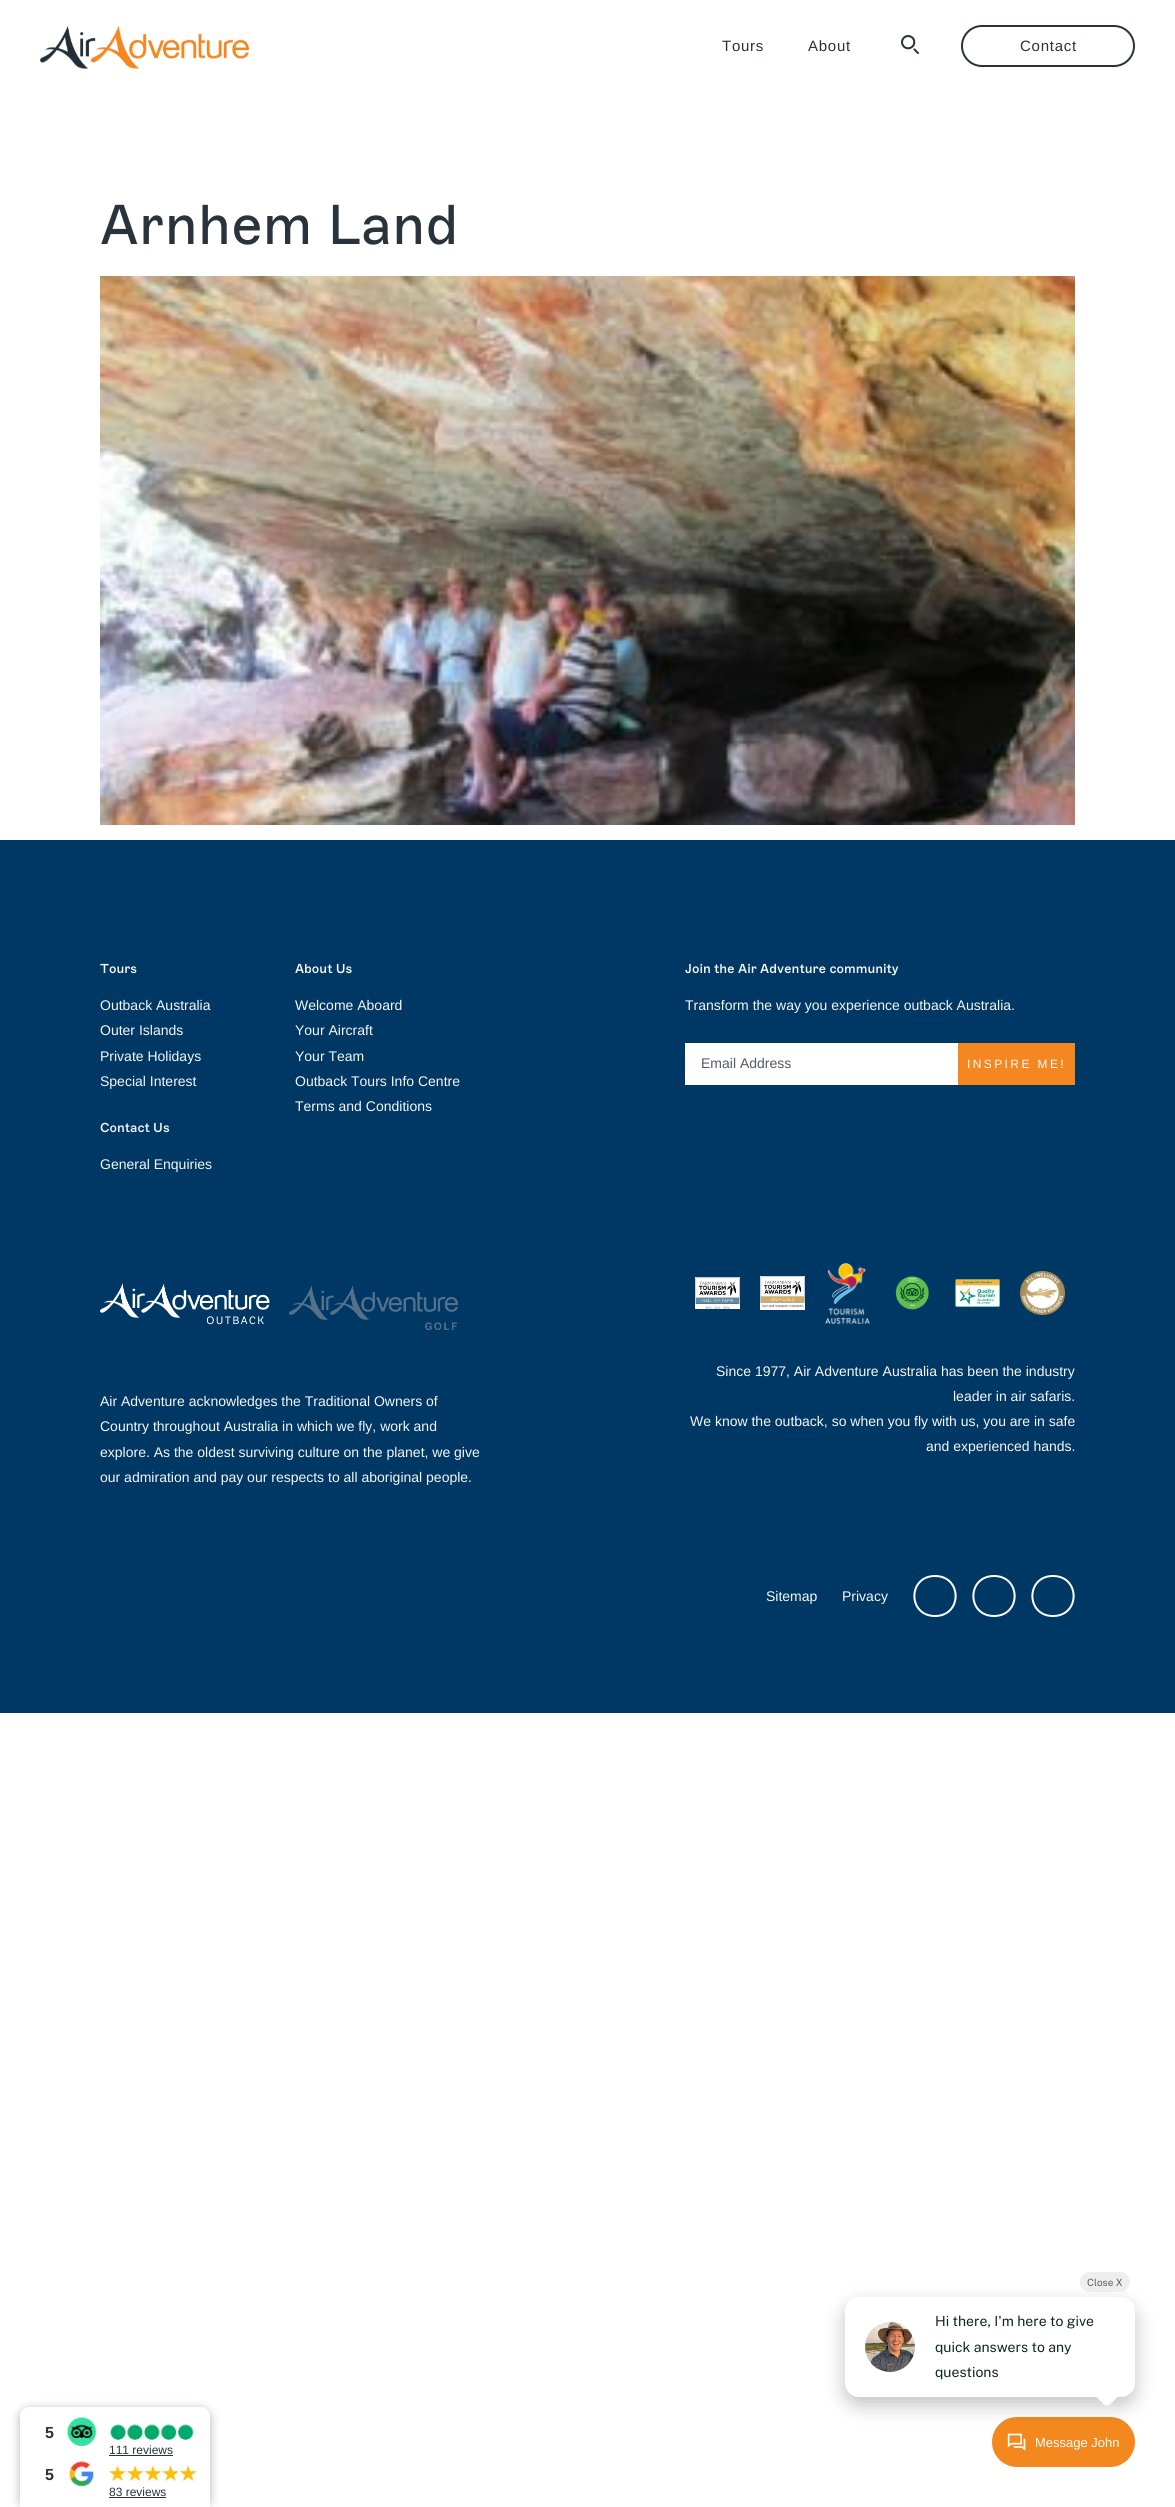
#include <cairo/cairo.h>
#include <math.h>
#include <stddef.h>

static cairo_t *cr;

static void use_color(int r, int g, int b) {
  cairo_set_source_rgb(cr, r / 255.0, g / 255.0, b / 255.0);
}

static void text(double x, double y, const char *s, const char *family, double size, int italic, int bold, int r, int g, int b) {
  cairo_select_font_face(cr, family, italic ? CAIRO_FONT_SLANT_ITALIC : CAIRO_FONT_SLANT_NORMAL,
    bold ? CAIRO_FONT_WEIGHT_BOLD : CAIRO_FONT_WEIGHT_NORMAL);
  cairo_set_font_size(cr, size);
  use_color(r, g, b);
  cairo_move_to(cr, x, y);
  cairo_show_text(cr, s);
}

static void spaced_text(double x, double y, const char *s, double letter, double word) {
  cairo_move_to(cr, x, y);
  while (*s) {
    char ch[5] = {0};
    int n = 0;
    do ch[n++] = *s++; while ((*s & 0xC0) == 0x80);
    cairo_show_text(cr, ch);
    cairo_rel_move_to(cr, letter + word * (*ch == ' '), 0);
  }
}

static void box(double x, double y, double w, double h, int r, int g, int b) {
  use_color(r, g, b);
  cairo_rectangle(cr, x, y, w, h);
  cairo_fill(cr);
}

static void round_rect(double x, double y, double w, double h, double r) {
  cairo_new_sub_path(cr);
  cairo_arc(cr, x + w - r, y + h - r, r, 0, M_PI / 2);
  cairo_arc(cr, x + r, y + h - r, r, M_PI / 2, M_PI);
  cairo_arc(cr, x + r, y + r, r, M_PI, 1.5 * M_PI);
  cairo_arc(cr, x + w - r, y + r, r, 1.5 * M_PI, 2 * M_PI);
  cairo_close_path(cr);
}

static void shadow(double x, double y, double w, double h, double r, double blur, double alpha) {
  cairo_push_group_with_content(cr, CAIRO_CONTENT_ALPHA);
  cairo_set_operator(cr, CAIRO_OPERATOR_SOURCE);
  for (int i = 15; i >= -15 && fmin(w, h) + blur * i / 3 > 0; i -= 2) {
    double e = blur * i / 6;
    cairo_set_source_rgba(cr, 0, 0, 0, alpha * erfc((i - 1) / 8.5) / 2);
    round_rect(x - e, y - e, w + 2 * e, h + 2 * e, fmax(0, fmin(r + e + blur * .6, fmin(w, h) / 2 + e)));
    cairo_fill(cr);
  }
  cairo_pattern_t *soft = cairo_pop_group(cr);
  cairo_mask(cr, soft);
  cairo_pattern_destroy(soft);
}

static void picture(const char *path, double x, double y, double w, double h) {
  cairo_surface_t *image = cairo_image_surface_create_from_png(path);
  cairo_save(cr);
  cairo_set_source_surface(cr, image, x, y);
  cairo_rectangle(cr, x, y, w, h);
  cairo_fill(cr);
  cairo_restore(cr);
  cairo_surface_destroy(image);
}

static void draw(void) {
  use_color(255, 255, 255);
  cairo_paint(cr);
  picture("img_01.png", 40, 25, 210, 44);
  picture("img_02.png", 901, 35, 18, 19);
  round_rect(962, 26, 172, 40, 20);
  use_color(40, 51, 60);
  cairo_stroke(cr);
  picture("img_03.png", 100, 276, 975, 549);
  box(0, 840, 1175, 873, 0, 56, 101);
  box(685, 1043, 273, 42, 255, 255, 255);
  box(958, 1043, 117, 42, 244, 135, 31);
  picture("img_04.png", 100, 1283, 170, 42);
  picture("img_05.png", 289, 1285, 169, 46);
  picture("img_06.png", 695, 1277, 45, 32);
  picture("img_07.png", 760, 1276, 45, 34);
  picture("img_08.png", 825, 1263, 45, 61);
  picture("img_09.png", 895, 1276, 34, 34);
  picture("img_10.png", 955, 1279, 45, 28);
  picture("img_11.png", 1020, 1271, 45, 44);
  cairo_new_path(cr);
  cairo_move_to(cr, 935, 1576);
  cairo_curve_to(cr, 962.5, 1576, 962.5, 1616, 935, 1616);
  cairo_curve_to(cr, 907.5, 1616, 907.5, 1576, 935, 1576);
  cairo_close_path(cr);
  use_color(255, 255, 255);
  cairo_stroke(cr);
  cairo_new_path(cr);
  cairo_move_to(cr, 994, 1576);
  cairo_curve_to(cr, 1021.5, 1576, 1021.5, 1616, 994, 1616);
  cairo_curve_to(cr, 966.5, 1616, 966.5, 1576, 994, 1576);
  cairo_close_path(cr);
  cairo_stroke(cr);
  cairo_new_path(cr);
  cairo_move_to(cr, 1053, 1576);
  cairo_curve_to(cr, 1080.5, 1576, 1080.5, 1616, 1053, 1616);
  cairo_curve_to(cr, 1025.5, 1616, 1025.5, 1576, 1053, 1576);
  cairo_close_path(cr);
  cairo_stroke(cr);
  cairo_save(cr);
  cairo_set_fill_rule(cr, CAIRO_FILL_RULE_EVEN_ODD);
  cairo_new_path(cr);
  cairo_move_to(cr, 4, 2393);
  cairo_line_to(cr, 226, 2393);
  cairo_line_to(cr, 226, 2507);
  cairo_line_to(cr, 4, 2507);
  cairo_close_path(cr);
  cairo_move_to(cr, 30, 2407);
  cairo_line_to(cr, 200, 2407);
  cairo_curve_to(cr, 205.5, 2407, 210, 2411.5, 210, 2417);
  cairo_line_to(cr, 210, 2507);
  cairo_line_to(cr, 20, 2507);
  cairo_line_to(cr, 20, 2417);
  cairo_curve_to(cr, 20, 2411.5, 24.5, 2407, 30, 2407);
  cairo_close_path(cr);
  cairo_clip(cr);
  use_color(0, 0, 0);
  shadow(20, 2409, 190, 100, 10, 5, 0.3);
  cairo_restore(cr);
  picture("img_12.png", 20, 2407, 190, 80);
  box(109, 2455, 64, 1, 40, 51, 60);
  box(109, 2497, 57, 1, 40, 51, 60);
  use_color(243, 136, 30);
  round_rect(992, 2417, 143, 50, 25);
  cairo_fill(cr);
  picture("img_14.png", 1007, 2433, 19, 18);
  use_color(0, 0, 0);
  shadow(845, 2305, 290, 100, 14, 10, 0.24);
  use_color(255, 255, 255);
  round_rect(845, 2297, 290, 100, 14);
  cairo_fill(cr);
  use_color(238, 238, 238);
  round_rect(1080, 2272, 50, 20, 10);
  cairo_fill(cr);
  picture("img_13.png", 865, 2322, 50, 50);
  use_color(255, 255, 255);
  cairo_new_path(cr);
  cairo_move_to(cr, 1110, 2381.5);
  cairo_line_to(cr, 1118.5, 2390);
  cairo_curve_to(cr, 1120, 2391.5, 1120, 2394.5, 1118.5, 2396);
  cairo_line_to(cr, 1110, 2404.5);
  cairo_curve_to(cr, 1108.5, 2406, 1105.5, 2406, 1104, 2404.5);
  cairo_line_to(cr, 1095.5, 2396);
  cairo_curve_to(cr, 1094, 2394.5, 1094, 2391.5, 1095.5, 2390);
  cairo_line_to(cr, 1104, 2381.5);
  cairo_curve_to(cr, 1105.5, 2380, 1108.5, 2380, 1110, 2381.5);
  cairo_close_path(cr);
  cairo_fill(cr);
  cairo_select_font_face(cr, "Liberation Sans", CAIRO_FONT_SLANT_NORMAL, CAIRO_FONT_WEIGHT_NORMAL);
  cairo_set_font_size(cr, 15);
  use_color(40, 51, 60);
  spaced_text(722, 51, "Tours", 0.75, 0);
  spaced_text(808, 51, "About", 0.75, 0);
  spaced_text(1020, 51, "Contact", 0.75, 0);
  text(100, 244, "Arnhem Land", "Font", 56, 0, 0, 40, 51, 60);
  text(100, 973, "Tours", "Font Medium", 13, 0, 0, 247, 246, 244);
  text(100, 1010, "Outback Australia", "Liberation Sans", 14, 0, 0, 247, 246, 244);
  text(100, 1035, "Outer Islands", "Liberation Sans", 14, 0, 0, 247, 246, 244);
  text(100, 1061, "Private Holidays", "Liberation Sans", 14, 0, 0, 247, 246, 244);
  text(100, 1086, "Special Interest", "Liberation Sans", 14, 0, 0, 247, 246, 244);
  text(295, 973, "About Us", "Font Medium", 13, 0, 0, 247, 246, 244);
  text(295, 1010, "Welcome Aboard", "Liberation Sans", 14, 0, 0, 247, 246, 244);
  text(295, 1035, "Your Aircraft", "Liberation Sans", 14, 0, 0, 247, 246, 244);
  text(295, 1061, "Your Team", "Liberation Sans", 14, 0, 0, 247, 246, 244);
  text(295, 1086, "Outback Tours Info Centre", "Liberation Sans", 14, 0, 0, 247, 246, 244);
  text(295, 1111, "Terms and Conditions", "Liberation Sans", 14, 0, 0, 247, 246, 244);
  text(100, 1132, "Contact Us", "Font Medium", 13, 0, 0, 247, 246, 244);
  text(100, 1169, "General Enquiries", "Liberation Sans", 14, 0, 0, 247, 246, 244);
  text(685, 973, "Join the Air Adventure community", "Font Medium", 13, 0, 0, 247, 246, 244);
  text(685, 1010, "Transform the way you experience outback Australia.", "Liberation Sans", 14, 0, 0, 247, 246, 244);
  text(701, 1068, "Email Address", "Liberation Sans", 14, 0, 0, 83, 91, 99);
  cairo_set_font_size(cr, 12);
  use_color(255, 255, 255);
  spaced_text(967, 1068, "INSPIRE ME!", 2.4, 0);
  text(100, 1406, "Air Adventure acknowledges the Traditional Owners of", "Liberation Sans", 14, 0, 0, 247, 246, 244);
  text(100, 1431, "Country throughout Australia in which we fly, work and", "Liberation Sans", 14, 0, 0, 247, 246, 244);
  text(100, 1457, "explore. As the oldest surviving culture on the planet, we give", "Liberation Sans", 14, 0, 0, 247, 246, 244);
  text(100, 1482, "our admiration and pay our respects to all aboriginal people.", "Liberation Sans", 14, 0, 0, 247, 246, 244);
  text(716, 1376, "Since 1977, Air Adventure Australia has been the industry", "Liberation Sans", 14, 0, 0, 247, 246, 244);
  text(953, 1401, "leader in air safaris.", "Liberation Sans", 14, 0, 0, 247, 246, 244);
  text(690, 1426, "We know the outback, so when you fly with us, you are in safe", "Liberation Sans", 14, 0, 0, 247, 246, 244);
  text(926, 1451, "and experienced hands.", "Liberation Sans", 14, 0, 0, 247, 246, 244);
  text(766, 1601, "Sitemap", "Liberation Sans", 14, 0, 0, 247, 246, 244);
  text(842, 1601, "Privacy", "Liberation Sans", 14, 0, 0, 247, 246, 244);
  text(45, 2438, "5", "Liberation Sans", 16, 0, 1, 40, 51, 60);
  text(109, 2454, "111 reviews", "Liberation Sans", 12, 0, 0, 40, 51, 60);
  text(45, 2480, "5", "Liberation Sans", 16, 0, 1, 40, 51, 60);
  text(109, 2496, "83 reviews", "Liberation Sans", 12, 0, 0, 40, 51, 60);
  text(1087, 2286, "Close X", "Public Sans Thin", 10, 0, 0, 93, 93, 93);
  text(935, 2326, "Hi there, I'm here to give", "Public Sans Thin", 14, 0, 0, 15, 37, 34);
  text(935, 2352, "quick answers to any", "Public Sans Thin", 14, 0, 0, 15, 37, 34);
  text(935, 2377, "questions", "Public Sans Thin", 14, 0, 0, 15, 37, 34);
  text(1035, 2447, "Message John", "Liberation Sans", 13, 0, 0, 255, 255, 255);
}

int main(void) {
  cairo_surface_t *surface = cairo_image_surface_create(CAIRO_FORMAT_RGB24, 1175, 2507);
  cr = cairo_create(surface);
  cairo_font_options_t *options = cairo_font_options_create();
  cairo_font_options_set_hint_metrics(options, CAIRO_HINT_METRICS_OFF);
  cairo_font_options_set_hint_style(options, CAIRO_HINT_STYLE_NONE);
  cairo_set_font_options(cr, options);
  cairo_set_miter_limit(cr, 4);
  draw();
  cairo_surface_write_to_png(surface, "out.png");
  cairo_font_options_destroy(options);
  cairo_destroy(cr);
  cairo_surface_destroy(surface);
  return 0;
}
